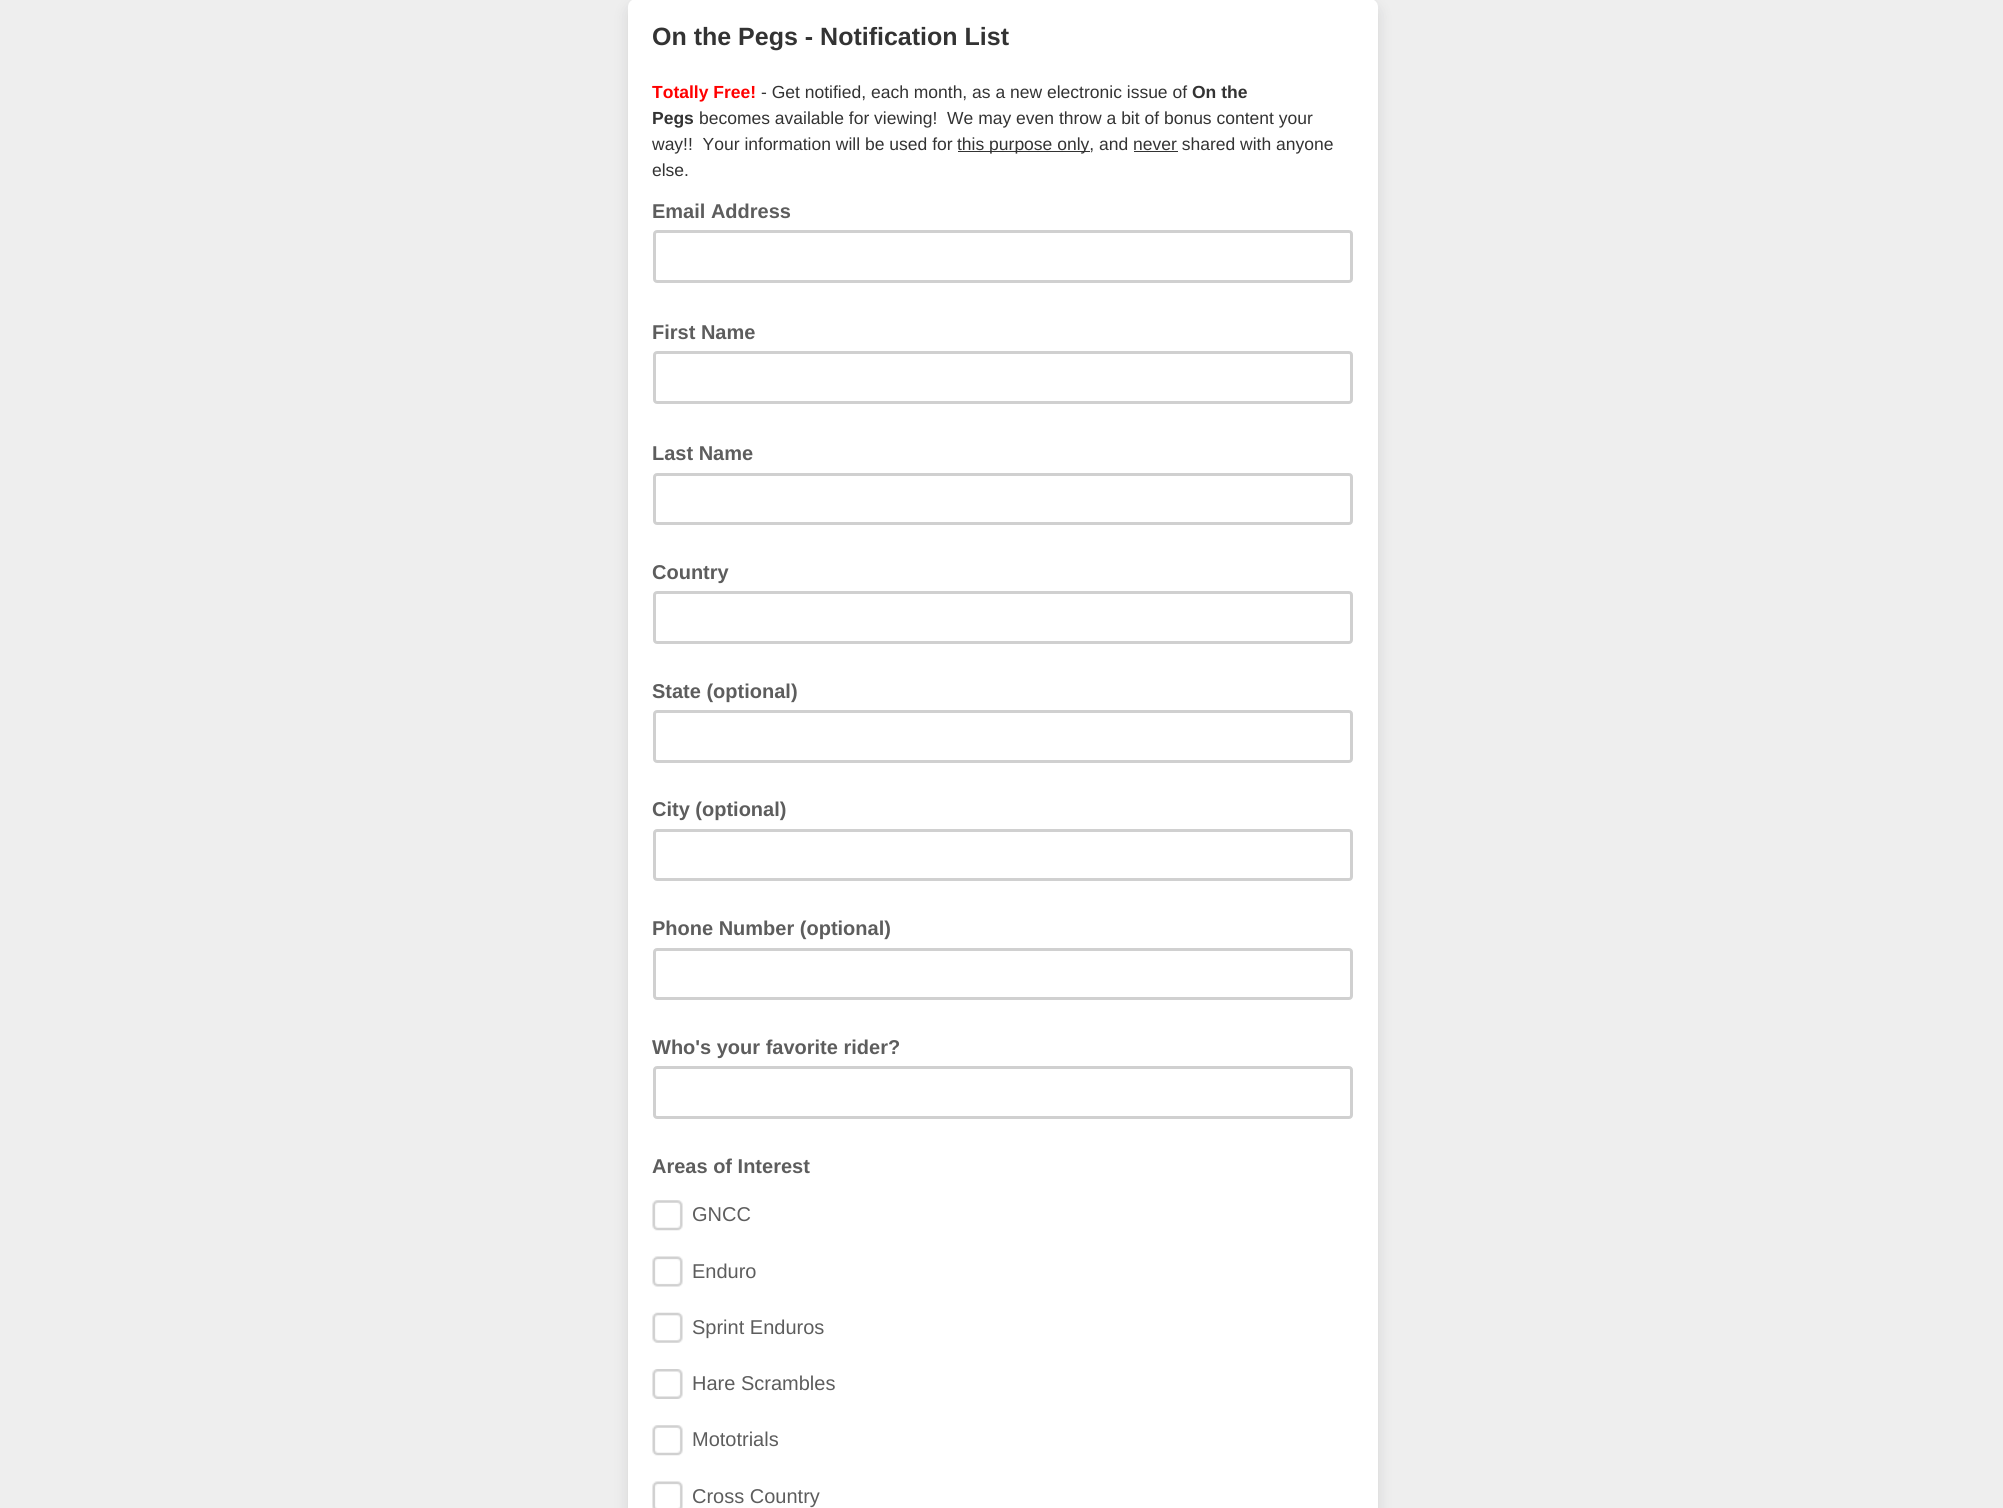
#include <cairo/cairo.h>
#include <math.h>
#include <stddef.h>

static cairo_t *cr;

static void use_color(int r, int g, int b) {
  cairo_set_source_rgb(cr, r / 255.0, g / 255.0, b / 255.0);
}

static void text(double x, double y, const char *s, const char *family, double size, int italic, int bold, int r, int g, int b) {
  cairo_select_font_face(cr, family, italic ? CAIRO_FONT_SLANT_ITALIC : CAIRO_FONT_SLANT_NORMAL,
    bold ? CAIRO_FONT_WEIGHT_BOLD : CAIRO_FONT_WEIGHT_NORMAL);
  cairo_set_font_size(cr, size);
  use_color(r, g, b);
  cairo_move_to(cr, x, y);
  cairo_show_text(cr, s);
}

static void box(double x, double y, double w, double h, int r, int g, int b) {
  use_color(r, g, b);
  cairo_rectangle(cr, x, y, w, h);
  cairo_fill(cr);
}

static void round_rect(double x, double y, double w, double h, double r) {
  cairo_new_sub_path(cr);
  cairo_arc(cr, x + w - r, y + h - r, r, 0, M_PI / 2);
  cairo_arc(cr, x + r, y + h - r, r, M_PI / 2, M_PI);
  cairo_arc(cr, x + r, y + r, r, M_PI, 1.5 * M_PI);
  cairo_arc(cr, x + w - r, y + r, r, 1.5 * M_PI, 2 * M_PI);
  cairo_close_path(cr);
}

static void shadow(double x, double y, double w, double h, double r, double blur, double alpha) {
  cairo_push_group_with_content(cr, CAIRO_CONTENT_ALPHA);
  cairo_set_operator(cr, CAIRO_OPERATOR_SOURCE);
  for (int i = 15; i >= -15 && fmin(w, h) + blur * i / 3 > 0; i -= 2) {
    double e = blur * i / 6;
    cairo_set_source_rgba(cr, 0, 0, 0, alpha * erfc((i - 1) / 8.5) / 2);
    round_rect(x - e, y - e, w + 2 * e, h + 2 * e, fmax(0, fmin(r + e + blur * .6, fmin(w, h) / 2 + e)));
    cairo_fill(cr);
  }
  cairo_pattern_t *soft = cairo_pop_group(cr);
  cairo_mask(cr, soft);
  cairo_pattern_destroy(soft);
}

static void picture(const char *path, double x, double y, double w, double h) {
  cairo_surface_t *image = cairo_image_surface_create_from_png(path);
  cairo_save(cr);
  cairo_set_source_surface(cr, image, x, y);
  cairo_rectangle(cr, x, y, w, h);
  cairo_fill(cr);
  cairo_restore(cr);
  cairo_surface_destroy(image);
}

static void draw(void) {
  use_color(238, 238, 238);
  cairo_paint(cr);
  use_color(13, 18, 22);
  shadow(628, 6, 750, 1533, 8, 7.5, 0.12);
  use_color(255, 255, 255);
  round_rect(628, -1, 750, 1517, 8);
  cairo_fill(cr);
  box(958, 151, 132, 1, 51, 51, 51);
  box(1134, 151, 44, 1, 51, 51, 51);
  round_rect(654.5, 231.5, 697, 50, 2.5);
  use_color(208, 208, 208);
  cairo_set_line_width(cr, 3);
  cairo_stroke(cr);
  round_rect(654.5, 352.5, 697, 50, 2.5);
  cairo_stroke(cr);
  round_rect(654.5, 474.5, 697, 49, 2.5);
  cairo_stroke(cr);
  round_rect(654.5, 592.5, 697, 50, 2.5);
  cairo_stroke(cr);
  round_rect(654.5, 711.5, 697, 50, 2.5);
  cairo_stroke(cr);
  round_rect(654.5, 830.5, 697, 49, 2.5);
  cairo_stroke(cr);
  round_rect(654.5, 949.5, 697, 49, 2.5);
  cairo_stroke(cr);
  round_rect(654.5, 1067.5, 697, 50, 2.5);
  cairo_stroke(cr);
  picture("img_01.png", 652, 1200, 31, 31);
  picture("img_02.png", 652, 1256, 31, 31);
  picture("img_03.png", 652, 1312, 31, 31);
  picture("img_04.png", 652, 1369, 31, 30);
  picture("img_01.png", 652, 1425, 31, 31);
  picture("img_05.png", 652, 1481, 31, 27);
  text(652, 45, "On the Pegs - Notification List", "Liberation Sans", 25, 0, 1, 51, 51, 51);
  text(652, 98, "Totally Free!", "Liberation Sans", 17.5, 0, 1, 255, 0, 0);
  text(761, 98, "- Get notified, each month, as a new electronic issue of", "Liberation Sans", 17.5, 0, 0, 51, 51, 51);
  text(1192, 98, "On the", "Liberation Sans", 17.5, 0, 1, 51, 51, 51);
  text(652, 124, "Pegs", "Liberation Sans", 17.5, 0, 1, 51, 51, 51);
  text(699, 124, "becomes available for viewing!  We may even throw a bit of bonus content your", "Liberation Sans", 17.5, 0, 0, 51, 51, 51);
  text(652, 150, "way!!  Your information will be used for", "Liberation Sans", 17.5, 0, 0, 51, 51, 51);
  text(957, 150, "this purpose only, and never shared with anyone", "Liberation Sans", 17.5, 0, 0, 51, 51, 51);
  text(652, 176, "else.", "Liberation Sans", 17.5, 0, 0, 51, 51, 51);
  text(652, 218, "Email Address", "Liberation Sans", 20, 0, 1, 93, 93, 93);
  text(652, 339, "First Name", "Liberation Sans", 20, 0, 1, 93, 93, 93);
  text(652, 460, "Last Name", "Liberation Sans", 20, 0, 1, 93, 93, 93);
  text(652, 579, "Country", "Liberation Sans", 20, 0, 1, 93, 93, 93);
  text(652, 698, "State (optional)", "Liberation Sans", 20, 0, 1, 93, 93, 93);
  text(652, 816, "City (optional)", "Liberation Sans", 20, 0, 1, 93, 93, 93);
  text(652, 935, "Phone Number (optional)", "Liberation Sans", 20, 0, 1, 93, 93, 93);
  text(652, 1054, "Who's your favorite rider?", "Liberation Sans", 20, 0, 1, 93, 93, 93);
  text(652, 1173, "Areas of Interest", "Liberation Sans", 20, 0, 1, 93, 93, 93);
  text(692, 1221, "GNCC", "Liberation Sans", 20, 0, 0, 93, 93, 93);
  text(692, 1278, "Enduro", "Liberation Sans", 20, 0, 0, 93, 93, 93);
  text(692, 1334, "Sprint Enduros", "Liberation Sans", 20, 0, 0, 93, 93, 93);
  text(692, 1390, "Hare Scrambles", "Liberation Sans", 20, 0, 0, 93, 93, 93);
  text(692, 1446, "Mototrials", "Liberation Sans", 20, 0, 0, 93, 93, 93);
  text(692, 1503, "Cross Country", "Liberation Sans", 20, 0, 0, 93, 93, 93);
}

int main(void) {
  cairo_surface_t *surface = cairo_image_surface_create(CAIRO_FORMAT_RGB24, 2003, 1508);
  cr = cairo_create(surface);
  cairo_font_options_t *options = cairo_font_options_create();
  cairo_font_options_set_hint_metrics(options, CAIRO_HINT_METRICS_OFF);
  cairo_font_options_set_hint_style(options, CAIRO_HINT_STYLE_NONE);
  cairo_set_font_options(cr, options);
  cairo_set_miter_limit(cr, 4);
  draw();
  cairo_surface_write_to_png(surface, "out.png");
  cairo_font_options_destroy(options);
  cairo_destroy(cr);
  cairo_surface_destroy(surface);
  return 0;
}
